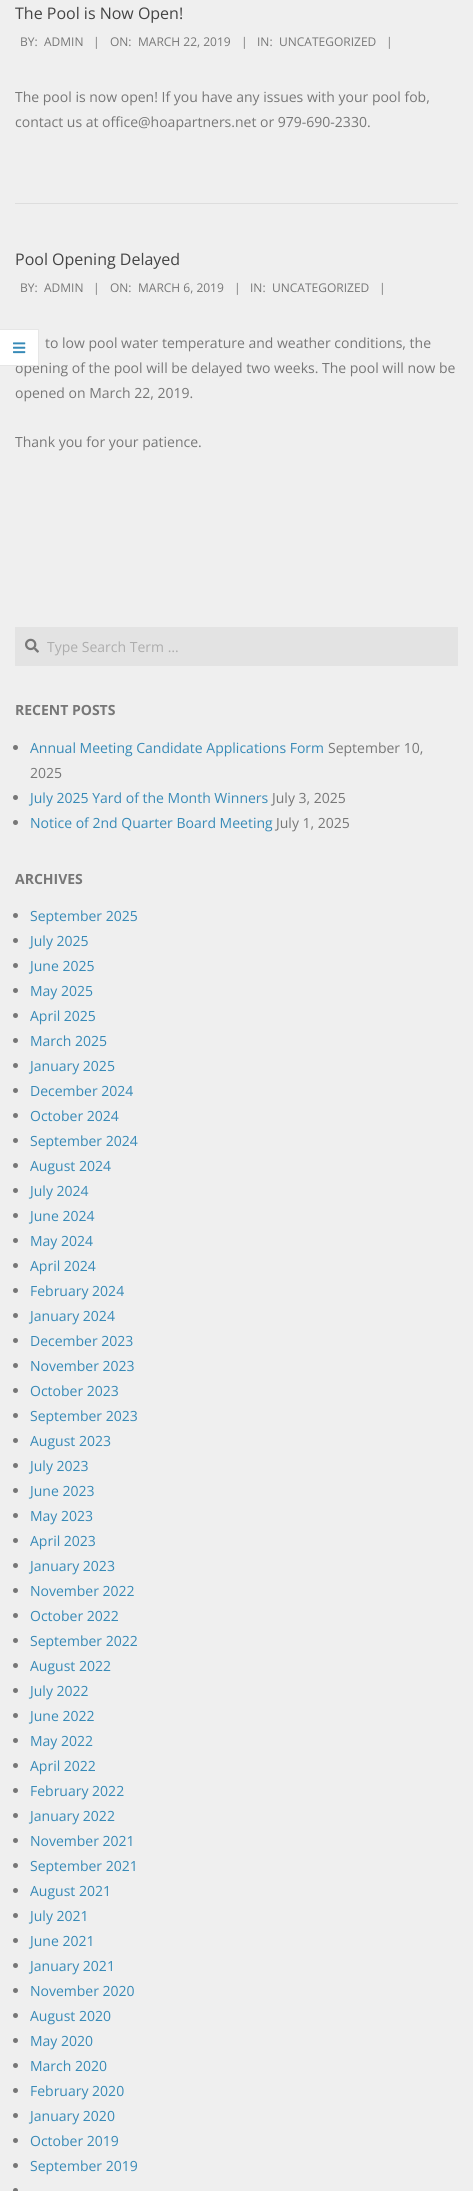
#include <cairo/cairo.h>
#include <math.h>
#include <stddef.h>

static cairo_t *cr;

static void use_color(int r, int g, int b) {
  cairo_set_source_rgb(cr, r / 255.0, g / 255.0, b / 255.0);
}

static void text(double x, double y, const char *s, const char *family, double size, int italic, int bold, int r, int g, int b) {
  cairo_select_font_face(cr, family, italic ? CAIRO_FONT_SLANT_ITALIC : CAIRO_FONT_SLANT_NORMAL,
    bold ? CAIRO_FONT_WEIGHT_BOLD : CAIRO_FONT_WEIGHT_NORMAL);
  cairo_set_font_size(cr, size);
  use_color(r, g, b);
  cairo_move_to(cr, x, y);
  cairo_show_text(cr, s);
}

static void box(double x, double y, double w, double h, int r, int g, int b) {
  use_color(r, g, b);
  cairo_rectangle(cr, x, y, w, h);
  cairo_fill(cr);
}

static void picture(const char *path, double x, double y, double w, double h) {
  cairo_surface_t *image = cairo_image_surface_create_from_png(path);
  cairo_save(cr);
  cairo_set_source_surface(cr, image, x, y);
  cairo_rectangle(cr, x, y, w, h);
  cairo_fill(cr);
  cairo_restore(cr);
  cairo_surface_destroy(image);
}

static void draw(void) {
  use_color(239, 239, 239);
  cairo_paint(cr);
  box(15, 203, 443, 1, 221, 221, 221);
  box(15, 627, 443, 39, 227, 227, 227);
  picture("img_01.png", 25, 638, 14, 15);
  use_color(119, 119, 119);
  cairo_arc(cr, 15.5, 747.5, 2.5, 0, 2 * M_PI);
  cairo_fill(cr);
  cairo_arc(cr, 15.5, 797.5, 2.5, 0, 2 * M_PI);
  cairo_fill(cr);
  cairo_arc(cr, 15.5, 822.5, 2.5, 0, 2 * M_PI);
  cairo_fill(cr);
  cairo_arc(cr, 15.5, 915.5, 2.5, 0, 2 * M_PI);
  cairo_fill(cr);
  cairo_arc(cr, 15.5, 940.5, 2.5, 0, 2 * M_PI);
  cairo_fill(cr);
  cairo_arc(cr, 15.5, 965.5, 2.5, 0, 2 * M_PI);
  cairo_fill(cr);
  cairo_arc(cr, 15.5, 990.5, 2.5, 0, 2 * M_PI);
  cairo_fill(cr);
  cairo_arc(cr, 15.5, 1015.5, 2.5, 0, 2 * M_PI);
  cairo_fill(cr);
  cairo_arc(cr, 15.5, 1040.5, 2.5, 0, 2 * M_PI);
  cairo_fill(cr);
  cairo_arc(cr, 15.5, 1065.5, 2.5, 0, 2 * M_PI);
  cairo_fill(cr);
  cairo_arc(cr, 15.5, 1090.5, 2.5, 0, 2 * M_PI);
  cairo_fill(cr);
  cairo_arc(cr, 15.5, 1115.5, 2.5, 0, 2 * M_PI);
  cairo_fill(cr);
  cairo_arc(cr, 15.5, 1140.5, 2.5, 0, 2 * M_PI);
  cairo_fill(cr);
  cairo_arc(cr, 15.5, 1165.5, 2.5, 0, 2 * M_PI);
  cairo_fill(cr);
  cairo_arc(cr, 15.5, 1190.5, 2.5, 0, 2 * M_PI);
  cairo_fill(cr);
  cairo_arc(cr, 15.5, 1215.5, 2.5, 0, 2 * M_PI);
  cairo_fill(cr);
  cairo_arc(cr, 15.5, 1240.5, 2.5, 0, 2 * M_PI);
  cairo_fill(cr);
  cairo_arc(cr, 15.5, 1265.5, 2.5, 0, 2 * M_PI);
  cairo_fill(cr);
  cairo_arc(cr, 15.5, 1290.5, 2.5, 0, 2 * M_PI);
  cairo_fill(cr);
  cairo_arc(cr, 15.5, 1315.5, 2.5, 0, 2 * M_PI);
  cairo_fill(cr);
  cairo_arc(cr, 15.5, 1340.5, 2.5, 0, 2 * M_PI);
  cairo_fill(cr);
  cairo_arc(cr, 15.5, 1365.5, 2.5, 0, 2 * M_PI);
  cairo_fill(cr);
  cairo_arc(cr, 15.5, 1390.5, 2.5, 0, 2 * M_PI);
  cairo_fill(cr);
  cairo_arc(cr, 15.5, 1415.5, 2.5, 0, 2 * M_PI);
  cairo_fill(cr);
  cairo_arc(cr, 15.5, 1440.5, 2.5, 0, 2 * M_PI);
  cairo_fill(cr);
  cairo_arc(cr, 15.5, 1465.5, 2.5, 0, 2 * M_PI);
  cairo_fill(cr);
  cairo_arc(cr, 15.5, 1490.5, 2.5, 0, 2 * M_PI);
  cairo_fill(cr);
  cairo_arc(cr, 15.5, 1515.5, 2.5, 0, 2 * M_PI);
  cairo_fill(cr);
  cairo_arc(cr, 15.5, 1540.5, 2.5, 0, 2 * M_PI);
  cairo_fill(cr);
  cairo_arc(cr, 15.5, 1565.5, 2.5, 0, 2 * M_PI);
  cairo_fill(cr);
  cairo_arc(cr, 15.5, 1590.5, 2.5, 0, 2 * M_PI);
  cairo_fill(cr);
  cairo_arc(cr, 15.5, 1615.5, 2.5, 0, 2 * M_PI);
  cairo_fill(cr);
  cairo_arc(cr, 15.5, 1640.5, 2.5, 0, 2 * M_PI);
  cairo_fill(cr);
  cairo_arc(cr, 15.5, 1665.5, 2.5, 0, 2 * M_PI);
  cairo_fill(cr);
  cairo_arc(cr, 15.5, 1690.5, 2.5, 0, 2 * M_PI);
  cairo_fill(cr);
  cairo_arc(cr, 15.5, 1715.5, 2.5, 0, 2 * M_PI);
  cairo_fill(cr);
  cairo_arc(cr, 15.5, 1740.5, 2.5, 0, 2 * M_PI);
  cairo_fill(cr);
  cairo_arc(cr, 15.5, 1765.5, 2.5, 0, 2 * M_PI);
  cairo_fill(cr);
  cairo_arc(cr, 15.5, 1790.5, 2.5, 0, 2 * M_PI);
  cairo_fill(cr);
  cairo_arc(cr, 15.5, 1815.5, 2.5, 0, 2 * M_PI);
  cairo_fill(cr);
  cairo_arc(cr, 15.5, 1840.5, 2.5, 0, 2 * M_PI);
  cairo_fill(cr);
  cairo_arc(cr, 15.5, 1865.5, 2.5, 0, 2 * M_PI);
  cairo_fill(cr);
  cairo_arc(cr, 15.5, 1890.5, 2.5, 0, 2 * M_PI);
  cairo_fill(cr);
  cairo_arc(cr, 15.5, 1915.5, 2.5, 0, 2 * M_PI);
  cairo_fill(cr);
  cairo_arc(cr, 15.5, 1940.5, 2.5, 0, 2 * M_PI);
  cairo_fill(cr);
  cairo_arc(cr, 15.5, 1965.5, 2.5, 0, 2 * M_PI);
  cairo_fill(cr);
  cairo_arc(cr, 15.5, 1990.5, 2.5, 0, 2 * M_PI);
  cairo_fill(cr);
  cairo_arc(cr, 15.5, 2015.5, 2.5, 0, 2 * M_PI);
  cairo_fill(cr);
  cairo_arc(cr, 15.5, 2040.5, 2.5, 0, 2 * M_PI);
  cairo_fill(cr);
  cairo_arc(cr, 15.5, 2065.5, 2.5, 0, 2 * M_PI);
  cairo_fill(cr);
  cairo_arc(cr, 15.5, 2090.5, 2.5, 0, 2 * M_PI);
  cairo_fill(cr);
  cairo_arc(cr, 15.5, 2115.5, 2.5, 0, 2 * M_PI);
  cairo_fill(cr);
  cairo_arc(cr, 15.5, 2140.5, 2.5, 0, 2 * M_PI);
  cairo_fill(cr);
  cairo_arc(cr, 15.5, 2165.5, 2.5, 0, 2 * M_PI);
  cairo_fill(cr);
  cairo_arc(cr, 15.5, 2190.5, 2.5, 0, 2 * M_PI);
  cairo_fill(cr);
  text(15, 19, "The Pool is Now Open!", "Open Sans", 16, 0, 0, 68, 68, 68);
  text(20, 46, "BY:", "Open Sans", 12, 0, 0, 119, 119, 119);
  text(44, 46, "ADMIN", "Open Sans", 12, 0, 0, 119, 119, 119);
  text(93, 46, "|", "Open Sans", 12, 0, 0, 119, 119, 119);
  text(110, 46, "ON:", "Open Sans", 12, 0, 0, 119, 119, 119);
  text(138, 46, "MARCH 22, 2019", "Open Sans", 12, 0, 0, 119, 119, 119);
  text(241, 46, "|", "Open Sans", 12, 0, 0, 119, 119, 119);
  text(257, 46, "IN:", "Open Sans", 12, 0, 0, 119, 119, 119);
  text(279, 46, "UNCATEGORIZED", "Open Sans", 12, 0, 0, 119, 119, 119);
  text(386, 46, "|", "Open Sans", 12, 0, 0, 119, 119, 119);
  text(15, 102, "The pool is now open! If you have any issues with your pool fob,", "Open Sans", 14, 0, 0, 119, 119, 119);
  text(15, 127, "contact us at office@hoapartners.net or 979-690-2330.", "Open Sans", 14, 0, 0, 119, 119, 119);
  text(15, 265, "Pool Opening Delayed", "Open Sans", 16, 0, 0, 68, 68, 68);
  text(20, 292, "BY:", "Open Sans", 12, 0, 0, 119, 119, 119);
  text(44, 292, "ADMIN", "Open Sans", 12, 0, 0, 119, 119, 119);
  text(93, 292, "|", "Open Sans", 12, 0, 0, 119, 119, 119);
  text(110, 292, "ON:", "Open Sans", 12, 0, 0, 119, 119, 119);
  text(138, 292, "MARCH 6, 2019", "Open Sans", 12, 0, 0, 119, 119, 119);
  text(234, 292, "|", "Open Sans", 12, 0, 0, 119, 119, 119);
  text(250, 292, "IN:", "Open Sans", 12, 0, 0, 119, 119, 119);
  text(272, 292, "UNCATEGORIZED", "Open Sans", 12, 0, 0, 119, 119, 119);
  text(379, 292, "|", "Open Sans", 12, 0, 0, 119, 119, 119);
  text(45, 348, "to low pool water temperature and weather conditions, the", "Open Sans", 14, 0, 0, 119, 119, 119);
  text(15, 373, "opening of the pool will be delayed two weeks. The pool will now be", "Open Sans", 14, 0, 0, 119, 119, 119);
  text(15, 398, "opened on March 22, 2019.", "Open Sans", 14, 0, 0, 119, 119, 119);
  text(15, 447, "Thank you for your patience.", "Open Sans", 14, 0, 0, 119, 119, 119);
  text(47, 652, "Type Search Term …", "Open Sans", 14, 0, 0, 173, 173, 173);
  text(15, 715, "RECENT POSTS", "Open Sans", 14, 0, 1, 119, 119, 119);
  text(30, 753, "Annual Meeting Candidate Applications Form", "Open Sans", 14, 0, 0, 55, 138, 183);
  text(328, 753, "September 10,", "Open Sans", 14, 0, 0, 119, 119, 119);
  text(30, 778, "2025", "Open Sans", 14, 0, 0, 119, 119, 119);
  text(30, 803, "July 2025 Yard of the Month Winners", "Open Sans", 14, 0, 0, 55, 138, 183);
  text(272, 803, "July 3, 2025", "Open Sans", 14, 0, 0, 119, 119, 119);
  text(30, 828, "Notice of 2nd Quarter Board Meeting", "Open Sans", 14, 0, 0, 55, 138, 183);
  text(276, 828, "July 1, 2025", "Open Sans", 14, 0, 0, 119, 119, 119);
  text(15, 884, "ARCHIVES", "Open Sans", 14, 0, 1, 119, 119, 119);
  text(30, 921, "September 2025", "Open Sans", 14, 0, 0, 55, 138, 183);
  text(30, 946, "July 2025", "Open Sans", 14, 0, 0, 55, 138, 183);
  text(30, 971, "June 2025", "Open Sans", 14, 0, 0, 55, 138, 183);
  text(30, 996, "May 2025", "Open Sans", 14, 0, 0, 55, 138, 183);
  text(30, 1021, "April 2025", "Open Sans", 14, 0, 0, 55, 138, 183);
  text(30, 1046, "March 2025", "Open Sans", 14, 0, 0, 55, 138, 183);
  text(30, 1071, "January 2025", "Open Sans", 14, 0, 0, 55, 138, 183);
  text(30, 1096, "December 2024", "Open Sans", 14, 0, 0, 55, 138, 183);
  text(30, 1121, "October 2024", "Open Sans", 14, 0, 0, 55, 138, 183);
  text(30, 1146, "September 2024", "Open Sans", 14, 0, 0, 55, 138, 183);
  text(30, 1171, "August 2024", "Open Sans", 14, 0, 0, 55, 138, 183);
  text(30, 1196, "July 2024", "Open Sans", 14, 0, 0, 55, 138, 183);
  text(30, 1221, "June 2024", "Open Sans", 14, 0, 0, 55, 138, 183);
  text(30, 1246, "May 2024", "Open Sans", 14, 0, 0, 55, 138, 183);
  text(30, 1271, "April 2024", "Open Sans", 14, 0, 0, 55, 138, 183);
  text(30, 1296, "February 2024", "Open Sans", 14, 0, 0, 55, 138, 183);
  text(30, 1321, "January 2024", "Open Sans", 14, 0, 0, 55, 138, 183);
  text(30, 1346, "December 2023", "Open Sans", 14, 0, 0, 55, 138, 183);
  text(30, 1371, "November 2023", "Open Sans", 14, 0, 0, 55, 138, 183);
  text(30, 1396, "October 2023", "Open Sans", 14, 0, 0, 55, 138, 183);
  text(30, 1421, "September 2023", "Open Sans", 14, 0, 0, 55, 138, 183);
  text(30, 1446, "August 2023", "Open Sans", 14, 0, 0, 55, 138, 183);
  text(30, 1471, "July 2023", "Open Sans", 14, 0, 0, 55, 138, 183);
  text(30, 1496, "June 2023", "Open Sans", 14, 0, 0, 55, 138, 183);
  text(30, 1521, "May 2023", "Open Sans", 14, 0, 0, 55, 138, 183);
  text(30, 1546, "April 2023", "Open Sans", 14, 0, 0, 55, 138, 183);
  text(30, 1571, "January 2023", "Open Sans", 14, 0, 0, 55, 138, 183);
  text(30, 1596, "November 2022", "Open Sans", 14, 0, 0, 55, 138, 183);
  text(30, 1621, "October 2022", "Open Sans", 14, 0, 0, 55, 138, 183);
  text(30, 1646, "September 2022", "Open Sans", 14, 0, 0, 55, 138, 183);
  text(30, 1671, "August 2022", "Open Sans", 14, 0, 0, 55, 138, 183);
  text(30, 1696, "July 2022", "Open Sans", 14, 0, 0, 55, 138, 183);
  text(30, 1721, "June 2022", "Open Sans", 14, 0, 0, 55, 138, 183);
  text(30, 1746, "May 2022", "Open Sans", 14, 0, 0, 55, 138, 183);
  text(30, 1771, "April 2022", "Open Sans", 14, 0, 0, 55, 138, 183);
  text(30, 1796, "February 2022", "Open Sans", 14, 0, 0, 55, 138, 183);
  text(30, 1821, "January 2022", "Open Sans", 14, 0, 0, 55, 138, 183);
  text(30, 1846, "November 2021", "Open Sans", 14, 0, 0, 55, 138, 183);
  text(30, 1871, "September 2021", "Open Sans", 14, 0, 0, 55, 138, 183);
  text(30, 1896, "August 2021", "Open Sans", 14, 0, 0, 55, 138, 183);
  text(30, 1921, "July 2021", "Open Sans", 14, 0, 0, 55, 138, 183);
  text(30, 1946, "June 2021", "Open Sans", 14, 0, 0, 55, 138, 183);
  text(30, 1971, "January 2021", "Open Sans", 14, 0, 0, 55, 138, 183);
  text(30, 1996, "November 2020", "Open Sans", 14, 0, 0, 55, 138, 183);
  text(30, 2021, "August 2020", "Open Sans", 14, 0, 0, 55, 138, 183);
  text(30, 2046, "May 2020", "Open Sans", 14, 0, 0, 55, 138, 183);
  text(30, 2071, "March 2020", "Open Sans", 14, 0, 0, 55, 138, 183);
  text(30, 2096, "February 2020", "Open Sans", 14, 0, 0, 55, 138, 183);
  text(30, 2121, "January 2020", "Open Sans", 14, 0, 0, 55, 138, 183);
  text(30, 2146, "October 2019", "Open Sans", 14, 0, 0, 55, 138, 183);
  text(30, 2171, "September 2019", "Open Sans", 14, 0, 0, 55, 138, 183);
  box(0, 329, 39, 37, 255, 255, 255);
  use_color(230, 230, 230);
  cairo_new_path(cr);
  cairo_move_to(cr, 0, 329);
  cairo_line_to(cr, 39, 329);
  cairo_line_to(cr, 38, 330);
  cairo_line_to(cr, 0, 330);
  cairo_close_path(cr);
  cairo_fill(cr);
  cairo_set_source_rgba(cr, 0, 0, 0, 0.1);
  cairo_new_path(cr);
  cairo_move_to(cr, 39, 329);
  cairo_line_to(cr, 39, 366);
  cairo_line_to(cr, 38, 365);
  cairo_line_to(cr, 38, 330);
  cairo_close_path(cr);
  cairo_fill(cr);
  cairo_new_path(cr);
  cairo_move_to(cr, 39, 366);
  cairo_line_to(cr, 0, 366);
  cairo_line_to(cr, 0, 365);
  cairo_line_to(cr, 38, 365);
  cairo_close_path(cr);
  cairo_fill(cr);
  picture("img_02.png", 13, 342, 13, 12);
}

int main(void) {
  cairo_surface_t *surface = cairo_image_surface_create(CAIRO_FORMAT_RGB24, 473, 2191);
  cr = cairo_create(surface);
  cairo_font_options_t *options = cairo_font_options_create();
  cairo_font_options_set_hint_metrics(options, CAIRO_HINT_METRICS_OFF);
  cairo_font_options_set_hint_style(options, CAIRO_HINT_STYLE_NONE);
  cairo_set_font_options(cr, options);
  cairo_set_miter_limit(cr, 4);
  draw();
  cairo_surface_write_to_png(surface, "out.png");
  cairo_font_options_destroy(options);
  cairo_destroy(cr);
  cairo_surface_destroy(surface);
  return 0;
}
